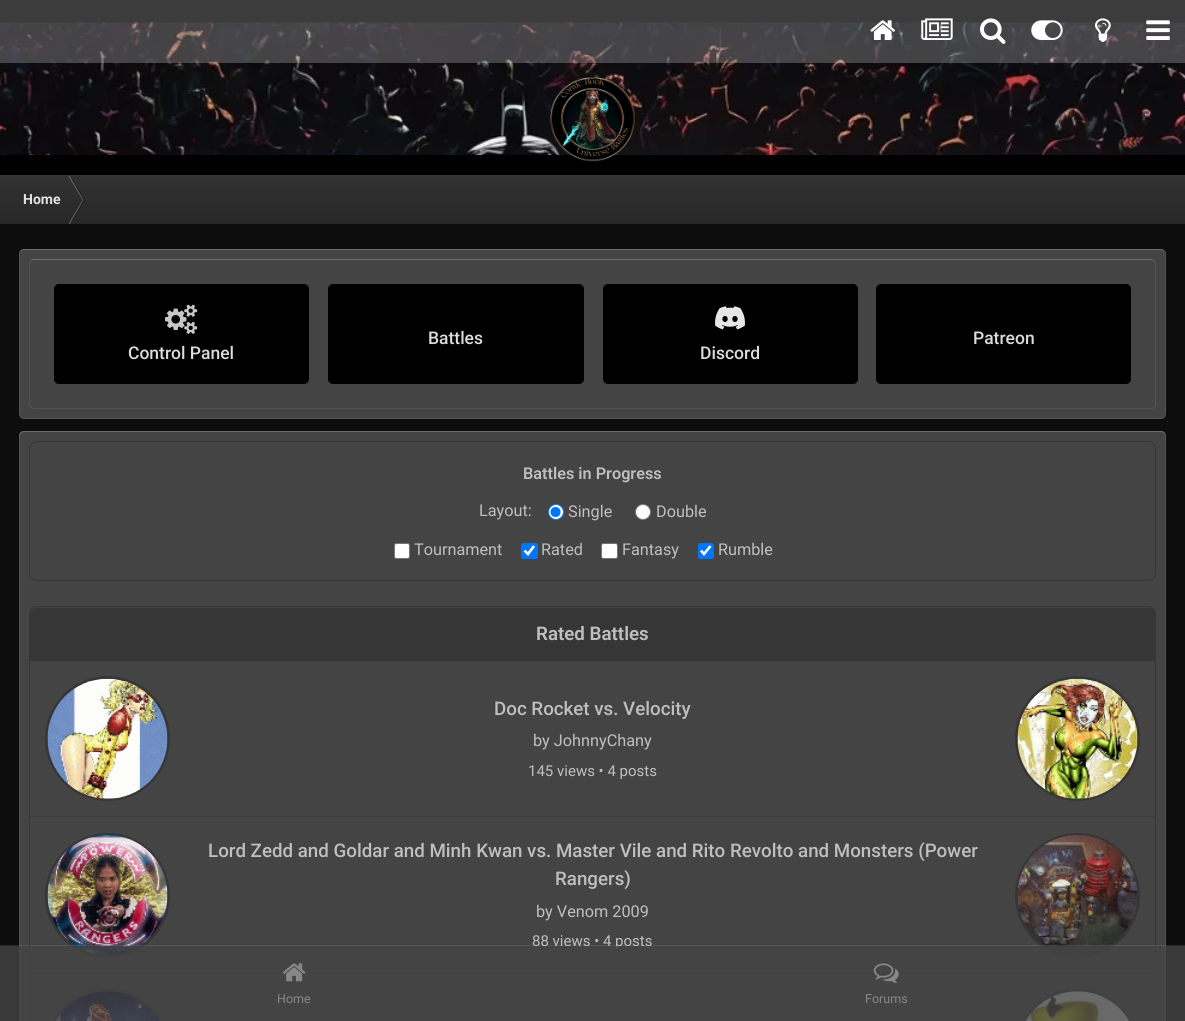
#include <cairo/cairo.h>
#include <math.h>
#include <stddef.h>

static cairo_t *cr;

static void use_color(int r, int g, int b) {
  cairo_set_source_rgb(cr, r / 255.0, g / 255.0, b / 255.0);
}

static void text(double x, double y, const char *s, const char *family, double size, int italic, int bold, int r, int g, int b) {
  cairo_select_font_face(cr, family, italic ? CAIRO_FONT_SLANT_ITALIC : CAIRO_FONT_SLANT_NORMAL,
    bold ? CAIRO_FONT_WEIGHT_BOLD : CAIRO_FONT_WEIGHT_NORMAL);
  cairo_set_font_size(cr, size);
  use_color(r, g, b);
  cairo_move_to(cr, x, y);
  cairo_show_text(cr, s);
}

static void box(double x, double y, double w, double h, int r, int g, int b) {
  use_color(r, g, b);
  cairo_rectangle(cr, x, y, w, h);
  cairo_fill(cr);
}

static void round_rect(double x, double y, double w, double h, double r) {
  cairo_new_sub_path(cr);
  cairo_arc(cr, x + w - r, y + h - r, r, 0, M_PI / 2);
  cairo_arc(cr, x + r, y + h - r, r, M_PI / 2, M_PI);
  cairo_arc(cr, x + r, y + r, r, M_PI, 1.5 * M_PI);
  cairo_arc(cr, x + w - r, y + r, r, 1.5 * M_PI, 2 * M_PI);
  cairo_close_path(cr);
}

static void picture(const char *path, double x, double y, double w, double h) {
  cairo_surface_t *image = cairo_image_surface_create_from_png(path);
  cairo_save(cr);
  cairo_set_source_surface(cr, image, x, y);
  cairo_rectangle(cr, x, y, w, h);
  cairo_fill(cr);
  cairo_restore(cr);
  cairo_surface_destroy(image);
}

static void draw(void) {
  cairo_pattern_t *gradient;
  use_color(13, 13, 13);
  cairo_paint(cr);
  box(0, 0, 1185, 175, 0, 0, 0);
  picture("img_07.png", 0, 22, 1185, 133);
  cairo_set_source_rgba(cr, 0.784, 0.784, 0.784, 0.3);
  cairo_rectangle(cr, 0, 0, 1185, 63);
  cairo_fill(cr);
  picture("img_01.png", 870, 20, 26, 20);
  picture("img_02.png", 921, 18, 32, 22);
  picture("img_03.png", 980, 18, 26, 26);
  picture("img_04.png", 1031, 20, 32, 20);
  picture("img_05.png", 1095, 18, 16, 24);
  picture("img_06.png", 1146, 20, 24, 20);
  box(0, 175, 1185, 1, 51, 51, 51);
  picture("img_08.png", 550, 77, 85, 85);
  gradient = cairo_pattern_create_linear(593, 176, 593, 224);
  cairo_pattern_add_color_stop_rgba(gradient, 0, 0.196, 0.196, 0.196, 1);
  cairo_pattern_add_color_stop_rgba(gradient, 1, 0.153, 0.153, 0.153, 1);
  cairo_set_source(cr, gradient);
  cairo_pattern_destroy(gradient);
  cairo_rectangle(cr, 0, 176, 1185, 48);
  cairo_fill(cr);
  cairo_set_source_rgba(cr, 1, 1, 1, 0.25);
  cairo_new_path(cr);
  cairo_move_to(cr, 68.5, 176);
  cairo_line_to(cr, 70, 176);
  cairo_line_to(cr, 83.5, 200);
  cairo_line_to(cr, 82.5, 200);
  cairo_close_path(cr);
  cairo_fill(cr);
  cairo_set_source_rgba(cr, 0, 0, 0, 0.3);
  cairo_new_path(cr);
  cairo_move_to(cr, 70, 176);
  cairo_line_to(cr, 71, 176);
  cairo_line_to(cr, 85, 200);
  cairo_line_to(cr, 83.5, 200);
  cairo_close_path(cr);
  cairo_fill(cr);
  cairo_set_source_rgba(cr, 1, 1, 1, 0.25);
  cairo_new_path(cr);
  cairo_move_to(cr, 68.5, 224);
  cairo_line_to(cr, 70, 224);
  cairo_line_to(cr, 83.5, 200);
  cairo_line_to(cr, 82.5, 200);
  cairo_close_path(cr);
  cairo_fill(cr);
  cairo_set_source_rgba(cr, 0, 0, 0, 0.3);
  cairo_new_path(cr);
  cairo_move_to(cr, 70, 224);
  cairo_line_to(cr, 71, 224);
  cairo_line_to(cr, 85, 200);
  cairo_line_to(cr, 83.5, 200);
  cairo_close_path(cr);
  cairo_fill(cr);
  use_color(68, 68, 68);
  round_rect(19, 249, 1147, 170, 5);
  cairo_fill(cr);
  cairo_set_source_rgba(cr, 1, 1, 1, 0.15);
  cairo_new_path(cr);
  cairo_move_to(cr, 24, 250);
  cairo_line_to(cr, 1161, 250);
  cairo_curve_to(cr, 1164, 250, 1166, 252, 1166, 255);
  cairo_curve_to(cr, 1166, 252, 1164, 249, 1161, 249);
  cairo_line_to(cr, 24, 249);
  cairo_curve_to(cr, 21, 249, 19, 252, 19, 255);
  cairo_curve_to(cr, 19, 252, 21, 250, 24, 250);
  cairo_close_path(cr);
  cairo_fill(cr);
  round_rect(19.5, 249.5, 1146, 169, 4.5);
  cairo_set_source_rgba(cr, 1, 1, 1, 0.08);
  cairo_set_line_width(cr, 1);
  cairo_stroke(cr);
  use_color(96, 96, 96);
  cairo_new_path(cr);
  cairo_move_to(cr, 34, 260);
  cairo_line_to(cr, 1151, 260);
  cairo_curve_to(cr, 1154, 260, 1156, 262, 1156, 265);
  cairo_curve_to(cr, 1156, 262, 1154, 259, 1151, 259);
  cairo_line_to(cr, 34, 259);
  cairo_curve_to(cr, 31, 259, 29, 262, 29, 265);
  cairo_curve_to(cr, 29, 262, 31, 260, 34, 260);
  cairo_close_path(cr);
  cairo_fill(cr);
  round_rect(29.5, 259.5, 1126, 149, 4.5);
  cairo_set_source_rgba(cr, 1, 1, 1, 0.08);
  cairo_stroke(cr);
  use_color(0, 0, 0);
  round_rect(328, 284, 256, 100, 5);
  cairo_fill(cr);
  round_rect(876, 284, 255, 100, 5);
  cairo_fill(cr);
  round_rect(54, 284, 255, 100, 5);
  cairo_fill(cr);
  picture("img_09.png", 165, 304, 33, 30);
  round_rect(603, 284, 255, 100, 5);
  cairo_fill(cr);
  picture("img_10.png", 715, 306, 30, 24);
  use_color(68, 68, 68);
  round_rect(19, 431, 1147, 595, 5);
  cairo_fill(cr);
  cairo_set_source_rgba(cr, 1, 1, 1, 0.15);
  cairo_new_path(cr);
  cairo_move_to(cr, 24, 432);
  cairo_line_to(cr, 1161, 432);
  cairo_curve_to(cr, 1164, 432, 1166, 435, 1166, 438);
  cairo_line_to(cr, 1166, 436);
  cairo_curve_to(cr, 1166, 433, 1164, 431, 1161, 431);
  cairo_line_to(cr, 24, 431);
  cairo_curve_to(cr, 21, 431, 19, 433, 19, 436);
  cairo_line_to(cr, 19, 438);
  cairo_curve_to(cr, 19, 435, 21, 432, 24, 432);
  cairo_close_path(cr);
  cairo_fill(cr);
  round_rect(19.5, 431.5, 1146, 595, 4.5);
  cairo_set_source_rgba(cr, 1, 1, 1, 0.08);
  cairo_stroke(cr);
  round_rect(29.5, 441.5, 1126, 139, 7.5);
  use_color(54, 54, 54);
  cairo_stroke(cr);
  use_color(255, 255, 255);
  cairo_arc(cr, 556, 512, 7.5, 0, 2 * M_PI);
  cairo_fill_preserve(cr);
  use_color(0, 117, 255);
  cairo_stroke(cr);
  cairo_arc(cr, 555.5, 512, 5, 0, 2 * M_PI);
  cairo_fill(cr);
  use_color(255, 255, 255);
  cairo_arc(cr, 643, 512, 7.5, 0, 2 * M_PI);
  cairo_fill_preserve(cr);
  use_color(118, 118, 118);
  cairo_stroke(cr);
  use_color(255, 255, 255);
  round_rect(394.5, 543.5, 15, 15, 2);
  cairo_fill_preserve(cr);
  use_color(118, 118, 118);
  cairo_stroke(cr);
  use_color(0, 117, 255);
  round_rect(521, 543, 17, 16, 2.5);
  cairo_fill(cr);
  cairo_new_path(cr);
  cairo_move_to(cr, 524.5, 550.5);
  cairo_line_to(cr, 528, 554);
  cairo_line_to(cr, 534, 546);
  use_color(255, 255, 255);
  cairo_set_line_width(cr, 2.6);
  cairo_stroke(cr);
  round_rect(601.5, 543.5, 16, 15, 2);
  cairo_fill_preserve(cr);
  use_color(118, 118, 118);
  cairo_set_line_width(cr, 1);
  cairo_stroke(cr);
  use_color(0, 117, 255);
  round_rect(698, 543, 16, 16, 2.5);
  cairo_fill(cr);
  cairo_new_path(cr);
  cairo_move_to(cr, 701, 550.5);
  cairo_line_to(cr, 704, 554);
  cairo_line_to(cr, 710.5, 546);
  use_color(255, 255, 255);
  cairo_set_line_width(cr, 2.6);
  cairo_stroke(cr);
  round_rect(29.5, 606.5, 1126, 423, 7.5);
  use_color(54, 54, 54);
  cairo_set_line_width(cr, 1);
  cairo_stroke(cr);
  cairo_set_source_rgba(cr, 0, 0, 0, 0.2);
  cairo_new_path(cr);
  cairo_move_to(cr, 36, 608);
  cairo_line_to(cr, 1149, 608);
  cairo_curve_to(cr, 1152.5, 608, 1155, 610.5, 1155, 614);
  cairo_line_to(cr, 1155, 661);
  cairo_line_to(cr, 30, 661);
  cairo_line_to(cr, 30, 614);
  cairo_curve_to(cr, 30, 610.5, 32.5, 608, 36, 608);
  cairo_close_path(cr);
  cairo_fill(cr);
  box(30, 816, 1125, 1, 61, 61, 61);
  cairo_arc(cr, 107.5, 738.5, 61, 0, 2 * M_PI);
  use_color(54, 54, 54);
  cairo_set_line_width(cr, 3);
  cairo_stroke(cr);
  picture("img_11.png", 47, 678, 121, 121);
  cairo_arc(cr, 1077.5, 738.5, 61, 0, 2 * M_PI);
  cairo_stroke(cr);
  picture("img_12.png", 1017, 678, 121, 121);
  box(30, 973, 1125, 1, 61, 61, 61);
  cairo_arc(cr, 107.5, 895.5, 61, 0, 2 * M_PI);
  use_color(54, 54, 54);
  cairo_stroke(cr);
  picture("img_13.png", 47, 835, 121, 120);
  cairo_arc(cr, 1077.5, 895.5, 61, 0, 2 * M_PI);
  cairo_stroke(cr);
  picture("img_14.png", 1017, 835, 121, 120);
  round_rect(46.5, 990.5, 122, 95, 61);
  cairo_stroke(cr);
  picture("img_15.png", 56, 991, 103, 30);
  round_rect(1016.5, 990.5, 122, 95, 61);
  cairo_stroke(cr);
  picture("img_16.png", 1025, 991, 105, 30);
  cairo_set_source_rgba(cr, 1, 1, 1, 0.1);
  cairo_rectangle(cr, 0, 945, 1185, 1);
  cairo_fill(cr);
  text(23, 204, "Home", "Roboto", 14, 0, 1, 227, 227, 227);
  text(428, 344, "Battles", "Roboto Medium", 17.5, 0, 0, 221, 221, 221);
  text(973, 344, "Patreon", "Roboto Medium", 17.5, 0, 0, 221, 221, 221);
  text(128, 359, "Control Panel", "Roboto Medium", 17.5, 0, 0, 221, 221, 221);
  text(700, 359, "Discord", "Roboto Medium", 17.5, 0, 0, 221, 221, 221);
  text(523, 479, "Battles in Progress", "Roboto SemiBold", 16.25, 0, 0, 191, 191, 191);
  text(479, 516, "Layout:", "Roboto", 16.25, 0, 0, 191, 191, 191);
  text(568, 517, "Single", "Roboto", 16.25, 0, 0, 191, 191, 191);
  text(656, 517, "Double", "Roboto", 16.25, 0, 0, 191, 191, 191);
  text(414, 555, "Tournament", "Roboto", 16.25, 0, 0, 191, 191, 191);
  text(541, 555, "Rated", "Roboto", 16.25, 0, 0, 191, 191, 191);
  text(622, 555, "Fantasy", "Roboto", 16.25, 0, 0, 191, 191, 191);
  text(718, 555, "Rumble", "Roboto", 16.25, 0, 0, 191, 191, 191);
  text(536, 640, "Rated Battles", "Roboto SemiBold", 18.75, 0, 0, 191, 191, 191);
  text(494, 715, "Doc Rocket vs. Velocity", "Roboto Medium", 18.75, 0, 0, 191, 191, 191);
  text(533, 746, "by JohnnyChany", "Roboto", 16.25, 0, 0, 191, 191, 191);
  text(528, 776, "145 views • 4 posts", "Roboto", 15, 0, 0, 191, 191, 191);
  text(208, 857, "Lord Zedd and Goldar and Minh Kwan vs. Master Vile and Rito Revolto and Monsters (Power", "Roboto Medium", 18.75, 0, 0, 191, 191, 191);
  text(555, 885, "Rangers)", "Roboto Medium", 18.75, 0, 0, 191, 191, 191);
  text(536, 917, "by Venom 2009", "Roboto", 16.25, 0, 0, 191, 191, 191);
  text(532, 946, "88 views • 4 posts", "Roboto", 15, 0, 0, 191, 191, 191);
  cairo_set_source_rgba(cr, 0.267, 0.267, 0.267, 0.8);
  cairo_rectangle(cr, 0, 946, 1185, 75);
  cairo_fill(cr);
  picture("img_17.png", 283, 963, 23, 19);
  text(277, 1003, "Home", "Roboto", 12.5, 0, 0, 135, 135, 135);
  picture("img_18.png", 873, 963, 26, 20);
  text(865, 1003, "Forums", "Roboto", 12.5, 0, 0, 135, 135, 135);
}

int main(void) {
  cairo_surface_t *surface = cairo_image_surface_create(CAIRO_FORMAT_RGB24, 1185, 1021);
  cr = cairo_create(surface);
  cairo_font_options_t *options = cairo_font_options_create();
  cairo_font_options_set_hint_metrics(options, CAIRO_HINT_METRICS_OFF);
  cairo_font_options_set_hint_style(options, CAIRO_HINT_STYLE_NONE);
  cairo_set_font_options(cr, options);
  cairo_set_miter_limit(cr, 4);
  draw();
  cairo_surface_write_to_png(surface, "out.png");
  cairo_font_options_destroy(options);
  cairo_destroy(cr);
  cairo_surface_destroy(surface);
  return 0;
}
